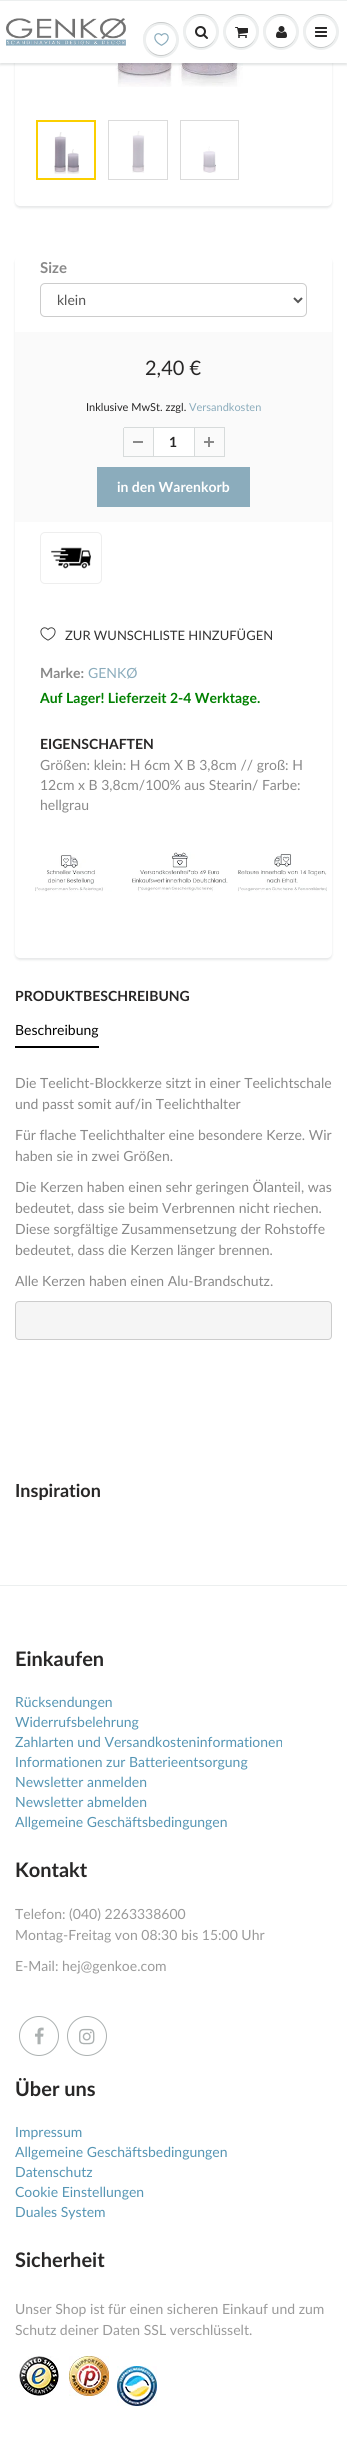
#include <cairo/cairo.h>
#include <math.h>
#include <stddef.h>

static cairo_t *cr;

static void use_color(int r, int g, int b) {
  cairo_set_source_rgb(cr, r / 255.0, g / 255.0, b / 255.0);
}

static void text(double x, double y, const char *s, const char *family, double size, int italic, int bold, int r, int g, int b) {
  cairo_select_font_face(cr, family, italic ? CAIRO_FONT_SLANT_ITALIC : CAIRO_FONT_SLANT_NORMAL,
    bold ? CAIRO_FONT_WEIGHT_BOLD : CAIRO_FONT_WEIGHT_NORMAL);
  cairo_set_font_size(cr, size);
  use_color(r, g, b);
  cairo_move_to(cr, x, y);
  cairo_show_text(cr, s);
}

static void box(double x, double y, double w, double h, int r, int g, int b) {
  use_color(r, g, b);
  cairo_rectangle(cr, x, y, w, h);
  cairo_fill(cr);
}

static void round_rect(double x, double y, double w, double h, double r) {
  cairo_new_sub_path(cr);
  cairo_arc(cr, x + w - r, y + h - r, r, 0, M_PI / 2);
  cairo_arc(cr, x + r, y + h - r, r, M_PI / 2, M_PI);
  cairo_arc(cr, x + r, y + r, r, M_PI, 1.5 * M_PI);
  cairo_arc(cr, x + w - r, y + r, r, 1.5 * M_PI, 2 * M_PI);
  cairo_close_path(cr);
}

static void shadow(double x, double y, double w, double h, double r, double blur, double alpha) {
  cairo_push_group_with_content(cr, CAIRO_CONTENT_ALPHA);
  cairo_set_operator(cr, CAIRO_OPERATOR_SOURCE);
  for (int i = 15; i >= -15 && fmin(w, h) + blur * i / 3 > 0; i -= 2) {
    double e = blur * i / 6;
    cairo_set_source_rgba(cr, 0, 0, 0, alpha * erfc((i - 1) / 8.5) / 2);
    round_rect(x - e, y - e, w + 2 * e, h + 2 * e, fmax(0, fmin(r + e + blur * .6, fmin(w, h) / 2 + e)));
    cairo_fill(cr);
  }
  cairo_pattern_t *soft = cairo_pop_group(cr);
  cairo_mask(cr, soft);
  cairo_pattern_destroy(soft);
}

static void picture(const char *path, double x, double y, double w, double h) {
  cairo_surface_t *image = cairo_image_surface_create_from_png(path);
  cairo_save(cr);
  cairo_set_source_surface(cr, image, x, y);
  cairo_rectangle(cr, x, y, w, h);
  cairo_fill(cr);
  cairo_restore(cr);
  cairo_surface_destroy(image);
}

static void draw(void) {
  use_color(255, 255, 255);
  cairo_paint(cr);
  use_color(11, 25, 28);
  shadow(15, -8, 317, 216, 5, 1, 0.1);
  use_color(255, 255, 255);
  round_rect(15, -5, 317, 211, 5);
  cairo_fill(cr);
  picture("img_07.png", 115, 63, 128, 24);
  use_color(11, 25, 28);
  shadow(0, 2, 347, 63, 0, 1, 0.12);
  box(0, 1, 347, 62, 255, 255, 255);
  box(0, 0, 347, 1, 236, 239, 239);
  picture("img_01.png", 6, 18, 120, 28);
  use_color(237, 239, 239);
  cairo_arc(cr, 161, 40, 18, 0, 2 * M_PI);
  cairo_fill(cr);
  use_color(201, 203, 203);
  cairo_new_path(cr);
  cairo_move_to(cr, 161, 23);
  cairo_curve_to(cr, 173, 23, 179, 31.5, 179, 40.5);
  cairo_curve_to(cr, 179, 37, 178, 33, 176, 30);
  cairo_curve_to(cr, 166, 15, 142.5, 22.5, 143, 40.5);
  cairo_curve_to(cr, 143, 31.5, 149, 23, 161, 23);
  cairo_close_path(cr);
  cairo_fill(cr);
  cairo_new_path(cr);
  cairo_move_to(cr, 146, 40.5);
  cairo_curve_to(cr, 146, 43.5, 147, 47, 148.5, 49.5);
  cairo_curve_to(cr, 157, 62, 176.5, 55.5, 176, 40.5);
  cairo_curve_to(cr, 175.5, 59.5, 146.5, 59.5, 146, 40.5);
  cairo_close_path(cr);
  cairo_fill(cr);
  use_color(255, 255, 255);
  cairo_arc(cr, 161, 40, 15, 0, 2 * M_PI);
  cairo_fill(cr);
  cairo_new_path(cr);
  cairo_move_to(cr, 161, 26);
  cairo_curve_to(cr, 171, 26, 176, 33, 176, 40.5);
  cairo_curve_to(cr, 176, 37.5, 175, 34, 173.5, 31.5);
  cairo_curve_to(cr, 165, 19, 145.5, 25.5, 146, 40.5);
  cairo_curve_to(cr, 146, 33, 151, 26, 161, 26);
  cairo_close_path(cr);
  cairo_fill(cr);
  picture("img_02.png", 154, 33, 15, 13);
  use_color(237, 239, 239);
  cairo_arc(cr, 201, 32, 18, 0, 2 * M_PI);
  cairo_fill(cr);
  use_color(201, 203, 203);
  cairo_new_path(cr);
  cairo_move_to(cr, 201, 15);
  cairo_curve_to(cr, 213, 15, 219, 23.5, 219, 32.5);
  cairo_curve_to(cr, 219, 29, 218, 25, 216, 22);
  cairo_curve_to(cr, 206, 7, 182.5, 14.5, 183, 32.5);
  cairo_curve_to(cr, 183, 23.5, 189, 15, 201, 15);
  cairo_close_path(cr);
  cairo_fill(cr);
  cairo_new_path(cr);
  cairo_move_to(cr, 186, 32.5);
  cairo_curve_to(cr, 185.5, 47.5, 205, 54, 213.5, 41.5);
  cairo_curve_to(cr, 215, 39, 216, 35.5, 216, 32.5);
  cairo_curve_to(cr, 215.5, 51.5, 186.5, 51.5, 186, 32.5);
  cairo_close_path(cr);
  cairo_fill(cr);
  use_color(255, 255, 255);
  cairo_arc(cr, 201, 32, 15, 0, 2 * M_PI);
  cairo_fill(cr);
  cairo_new_path(cr);
  cairo_move_to(cr, 201, 18);
  cairo_curve_to(cr, 211, 18, 216, 25, 216, 32.5);
  cairo_curve_to(cr, 216, 29.5, 215, 26, 213.5, 23.5);
  cairo_curve_to(cr, 205, 11, 185.5, 17.5, 186, 32.5);
  cairo_curve_to(cr, 186, 25, 191, 18, 201, 18);
  cairo_close_path(cr);
  cairo_fill(cr);
  picture("img_03.png", 195, 26, 13, 13);
  use_color(237, 239, 239);
  cairo_arc(cr, 241, 32, 18, 0, 2 * M_PI);
  cairo_fill(cr);
  use_color(201, 203, 203);
  cairo_new_path(cr);
  cairo_move_to(cr, 241, 15);
  cairo_curve_to(cr, 253, 15, 259, 23.5, 259, 32.5);
  cairo_curve_to(cr, 259.5, 14.5, 236, 7, 226, 22);
  cairo_curve_to(cr, 224, 25, 223, 29, 223, 32.5);
  cairo_curve_to(cr, 223, 23.5, 229, 15, 241, 15);
  cairo_close_path(cr);
  cairo_fill(cr);
  cairo_new_path(cr);
  cairo_move_to(cr, 226, 32.5);
  cairo_curve_to(cr, 225.5, 47.5, 245, 54, 253.5, 41.5);
  cairo_curve_to(cr, 255, 39, 256, 35.5, 256, 32.5);
  cairo_curve_to(cr, 255.5, 51.5, 226.5, 51.5, 226, 32.5);
  cairo_close_path(cr);
  cairo_fill(cr);
  use_color(255, 255, 255);
  cairo_arc(cr, 241, 32, 15, 0, 2 * M_PI);
  cairo_fill(cr);
  cairo_new_path(cr);
  cairo_move_to(cr, 241, 18);
  cairo_curve_to(cr, 251, 18, 256, 25, 256, 32.5);
  cairo_curve_to(cr, 256, 29.5, 255, 26, 253.5, 23.5);
  cairo_curve_to(cr, 245, 11, 225.5, 17.5, 226, 32.5);
  cairo_curve_to(cr, 226, 25, 231, 18, 241, 18);
  cairo_close_path(cr);
  cairo_fill(cr);
  picture("img_04.png", 235, 27, 13, 11);
  use_color(237, 239, 239);
  cairo_arc(cr, 281, 32, 18, 0, 2 * M_PI);
  cairo_fill(cr);
  use_color(201, 203, 203);
  cairo_new_path(cr);
  cairo_move_to(cr, 281, 15);
  cairo_curve_to(cr, 293, 15, 299, 23.5, 299, 32.5);
  cairo_curve_to(cr, 299, 29, 298, 25, 296, 22);
  cairo_curve_to(cr, 286, 7, 262.5, 14.5, 263, 32.5);
  cairo_curve_to(cr, 263, 23.5, 269, 15, 281, 15);
  cairo_close_path(cr);
  cairo_fill(cr);
  cairo_new_path(cr);
  cairo_move_to(cr, 266, 32.5);
  cairo_curve_to(cr, 266, 35.5, 267, 39, 268.5, 41.5);
  cairo_curve_to(cr, 277, 54, 296.5, 47.5, 296, 32.5);
  cairo_curve_to(cr, 295.5, 51.5, 266.5, 51.5, 266, 32.5);
  cairo_close_path(cr);
  cairo_fill(cr);
  use_color(255, 255, 255);
  cairo_arc(cr, 281, 32, 15, 0, 2 * M_PI);
  cairo_fill(cr);
  cairo_new_path(cr);
  cairo_move_to(cr, 281, 18);
  cairo_curve_to(cr, 291, 18, 296, 25, 296, 32.5);
  cairo_curve_to(cr, 296, 29.5, 295, 26, 293.5, 23.5);
  cairo_curve_to(cr, 285, 11, 265.5, 17.5, 266, 32.5);
  cairo_curve_to(cr, 266, 25, 271, 18, 281, 18);
  cairo_close_path(cr);
  cairo_fill(cr);
  picture("img_05.png", 276, 26, 11, 12);
  use_color(237, 239, 239);
  cairo_arc(cr, 321, 32, 18, 0, 2 * M_PI);
  cairo_fill(cr);
  use_color(201, 203, 203);
  cairo_new_path(cr);
  cairo_move_to(cr, 321, 15);
  cairo_curve_to(cr, 333, 15, 339, 23.5, 339, 32.5);
  cairo_curve_to(cr, 339, 29, 338, 25, 336, 22);
  cairo_curve_to(cr, 326, 7, 302.5, 14.5, 303, 32.5);
  cairo_curve_to(cr, 303, 23.5, 309, 15, 321, 15);
  cairo_close_path(cr);
  cairo_fill(cr);
  cairo_new_path(cr);
  cairo_move_to(cr, 306, 32.5);
  cairo_curve_to(cr, 306, 35.5, 307, 39, 308.5, 41.5);
  cairo_curve_to(cr, 317, 54, 336.5, 47.5, 336, 32.5);
  cairo_curve_to(cr, 335.5, 51.5, 306.5, 51.5, 306, 32.5);
  cairo_close_path(cr);
  cairo_fill(cr);
  use_color(255, 255, 255);
  cairo_arc(cr, 321, 32, 15, 0, 2 * M_PI);
  cairo_fill(cr);
  cairo_new_path(cr);
  cairo_move_to(cr, 321, 18);
  cairo_curve_to(cr, 331, 18, 336, 25, 336, 32.5);
  cairo_curve_to(cr, 336, 29.5, 335, 26, 333.5, 23.5);
  cairo_curve_to(cr, 325, 11, 305.5, 17.5, 306, 32.5);
  cairo_curve_to(cr, 306, 25, 311, 18, 321, 18);
  cairo_close_path(cr);
  cairo_fill(cr);
  picture("img_06.png", 315, 27, 12, 10);
  cairo_rectangle(cr, 37, 121, 58, 58);
  use_color(251, 207, 0);
  cairo_stroke(cr);
  picture("img_08.png", 54, 132, 26, 42);
  cairo_rectangle(cr, 108.5, 120.5, 59, 59);
  use_color(219, 219, 219);
  cairo_set_line_width(cr, 1);
  cairo_stroke(cr);
  picture("img_09.png", 132, 131, 13, 42);
  cairo_rectangle(cr, 180.5, 120.5, 58, 59);
  cairo_stroke(cr);
  picture("img_10.png", 203, 146, 13, 27);
  use_color(11, 25, 28);
  shadow(15, 258, 317, 702, 5, 1, 0.1);
  use_color(255, 255, 255);
  round_rect(15, 256, 317, 702, 5);
  cairo_fill(cr);
  round_rect(40.5, 283.5, 266, 33, 4.5);
  use_color(204, 204, 204);
  cairo_stroke(cr);
  cairo_new_path(cr);
  cairo_move_to(cr, 294, 298);
  cairo_line_to(cr, 298, 302);
  cairo_line_to(cr, 302, 298);
  use_color(85, 85, 85);
  cairo_set_line_width(cr, 2);
  cairo_stroke(cr);
  box(15, 332, 317, 190, 250, 250, 250);
  box(133, 441, 10, 2, 137, 137, 137);
  box(124, 427, 29, 1, 215, 219, 219);
  box(124, 456, 29, 1, 215, 219, 219);
  box(123, 428, 1, 29, 215, 219, 219);
  use_color(255, 255, 255);
  cairo_rectangle(cr, 153.5, 427.5, 41, 29);
  cairo_fill_preserve(cr);
  use_color(215, 219, 219);
  cairo_set_line_width(cr, 1);
  cairo_stroke(cr);
  picture("img_11.png", 204, 437, 10, 10);
  box(195, 427, 30, 1, 215, 219, 219);
  box(224, 428, 1, 29, 215, 219, 219);
  box(195, 456, 30, 1, 215, 219, 219);
  box(97, 467, 153, 40, 139, 172, 188);
  round_rect(40.5, 532.5, 61, 51, 4.5);
  use_color(238, 238, 238);
  cairo_stroke(cr);
  picture("img_12.png", 51, 547, 40, 22);
  picture("img_13.png", 40, 627, 16, 14);
  picture("img_14.png", 35, 852, 292, 40);
  box(15, 1046, 84, 2, 0, 0, 0);
  use_color(245, 245, 245);
  round_rect(15.5, 1301.5, 316, 38, 3.5);
  cairo_fill_preserve(cr);
  use_color(204, 204, 204);
  cairo_stroke(cr);
  box(0, 1585, 347, 1, 236, 239, 239);
  cairo_arc(cr, 39, 2036, 19.5, 0, 2 * M_PI);
  use_color(172, 177, 177);
  cairo_stroke(cr);
  picture("img_15.png", 35, 2027, 9, 18);
  cairo_arc(cr, 87, 2036, 19.5, 0, 2 * M_PI);
  cairo_stroke(cr);
  picture("img_16.png", 79, 2028, 16, 17);
  picture("img_17.png", 19, 2356, 40, 40);
  picture("img_18.png", 69, 2356, 40, 40);
  picture("img_19.png", 117, 2366, 40, 40);
  text(40, 273, "Size", "Lato", 15, 0, 1, 137, 137, 137);
  text(57, 305, "klein", "Lato", 14, 0, 0, 85, 85, 85);
  text(145, 375, "2,40 €", "Lato", 20, 0, 0, 40, 39, 39);
  text(86, 411, "Inklusive MwSt. zzgl.", "Lato", 11, 0, 0, 40, 39, 39);
  text(189, 411, "Versandkosten", "Lato", 11, 0, 0, 139, 172, 188);
  text(169, 447, "1", "Lato", 14, 0, 1, 40, 39, 39);
  text(117, 492, "in den Warenkorb", "Lato", 14, 0, 1, 255, 255, 255);
  text(65, 640, "ZUR WUNSCHLISTE HINZUFÜGEN", "Lato", 13, 0, 0, 51, 51, 51);
  text(40, 678, "Marke:", "Lato", 14, 0, 1, 137, 137, 137);
  text(88, 678, "GENKØ", "Lato", 14, 0, 0, 139, 172, 188);
  text(40, 703, "Auf Lager! Lieferzeit 2-4 Werktage.", "Lato", 14, 0, 1, 0, 128, 0);
  text(40, 749, "EIGENSCHAFTEN", "Lato", 14, 0, 1, 40, 39, 39);
  text(40, 770, "Größen: klein: H 6cm X B 3,8cm // groß: H", "Lato", 14, 0, 0, 137, 137, 137);
  text(40, 790, "12cm x B 3,8cm/100% aus Stearin/ Farbe:", "Lato", 14, 0, 0, 137, 137, 137);
  text(40, 810, "hellgrau", "Lato", 14, 0, 0, 137, 137, 137);
  text(15, 1001, "PRODUKTBESCHREIBUNG", "Lato", 14, 0, 1, 40, 39, 39);
  text(15, 1035, "Beschreibung", "Lato", 14, 0, 0, 0, 0, 0);
  text(15, 1088, "Die Teelicht-Blockkerze sitzt in einer Teelichtschale", "Lato", 14, 0, 0, 137, 137, 137);
  text(15, 1109, "und passt somit auf/in Teelichthalter", "Lato", 14, 0, 0, 137, 137, 137);
  text(15, 1140, "Für flache Teelichthalter eine besondere Kerze. Wir", "Lato", 14, 0, 0, 137, 137, 137);
  text(15, 1161, "haben sie in zwei Größen.", "Lato", 14, 0, 0, 137, 137, 137);
  text(15, 1192, "Die Kerzen haben einen sehr geringen Ölanteil, was", "Lato", 14, 0, 0, 137, 137, 137);
  text(15, 1213, "bedeutet, dass sie beim Verbrennen nicht riechen.", "Lato", 14, 0, 0, 137, 137, 137);
  text(15, 1234, "Diese sorgfältige Zusammensetzung der Rohstoffe", "Lato", 14, 0, 0, 137, 137, 137);
  text(15, 1255, "bedeutet, dass die Kerzen länger brennen.", "Lato", 14, 0, 0, 137, 137, 137);
  text(15, 1286, "Alle Kerzen haben einen Alu-Brandschutz.", "Lato", 14, 0, 0, 137, 137, 137);
  text(15, 1497, "Inspiration", "Lato", 18, 0, 1, 40, 39, 39);
  text(15, 1666, "Einkaufen", "Lato", 20, 0, 1, 40, 39, 39);
  text(15, 1707, "Rücksendungen", "Lato", 14, 0, 0, 85, 149, 180);
  text(15, 1727, "Widerrufsbelehrung", "Lato", 14, 0, 0, 85, 149, 180);
  text(15, 1747, "Zahlarten und Versandkosteninformationen", "Lato", 14, 0, 0, 85, 149, 180);
  text(15, 1767, "Informationen zur Batterieentsorgung", "Lato", 14, 0, 0, 85, 149, 180);
  text(15, 1787, "Newsletter anmelden", "Lato", 14, 0, 0, 85, 149, 180);
  text(15, 1807, "Newsletter abmelden", "Lato", 14, 0, 0, 85, 149, 180);
  text(15, 1827, "Allgemeine Geschäftsbedingungen", "Lato", 14, 0, 0, 85, 149, 180);
  text(15, 1877, "Kontakt", "Lato", 20, 0, 1, 40, 39, 39);
  text(15, 1919, "Telefon: (040) 2263338600", "Lato", 14, 0, 0, 154, 154, 154);
  text(15, 1940, "Montag-Freitag von 08:30 bis 15:00 Uhr", "Lato", 14, 0, 0, 154, 154, 154);
  text(15, 1971, "E-Mail: hej@genkoe.com", "Lato", 14, 0, 0, 154, 154, 154);
  text(15, 2096, "Über uns", "Lato", 20, 0, 1, 40, 39, 39);
  text(15, 2137, "Impressum", "Lato", 14, 0, 0, 85, 149, 180);
  text(15, 2157, "Allgemeine Geschäftsbedingungen", "Lato", 14, 0, 0, 85, 149, 180);
  text(15, 2177, "Datenschutz", "Lato", 14, 0, 0, 85, 149, 180);
  text(15, 2197, "Cookie Einstellungen", "Lato", 14, 0, 0, 85, 149, 180);
  text(15, 2217, "Duales System", "Lato", 14, 0, 0, 85, 149, 180);
  text(15, 2267, "Sicherheit", "Lato", 20, 0, 1, 40, 39, 39);
  text(15, 2314, "Unser Shop ist für einen sicheren Einkauf und zum", "Lato", 14, 0, 0, 154, 154, 154);
  text(15, 2335, "Schutz deiner Daten SSL verschlüsselt.", "Lato", 14, 0, 0, 154, 154, 154);
}

int main(void) {
  cairo_surface_t *surface = cairo_image_surface_create(CAIRO_FORMAT_RGB24, 347, 2461);
  cr = cairo_create(surface);
  cairo_font_options_t *options = cairo_font_options_create();
  cairo_font_options_set_hint_metrics(options, CAIRO_HINT_METRICS_OFF);
  cairo_font_options_set_hint_style(options, CAIRO_HINT_STYLE_NONE);
  cairo_set_font_options(cr, options);
  cairo_set_miter_limit(cr, 4);
  draw();
  cairo_surface_write_to_png(surface, "out.png");
  cairo_font_options_destroy(options);
  cairo_destroy(cr);
  cairo_surface_destroy(surface);
  return 0;
}
